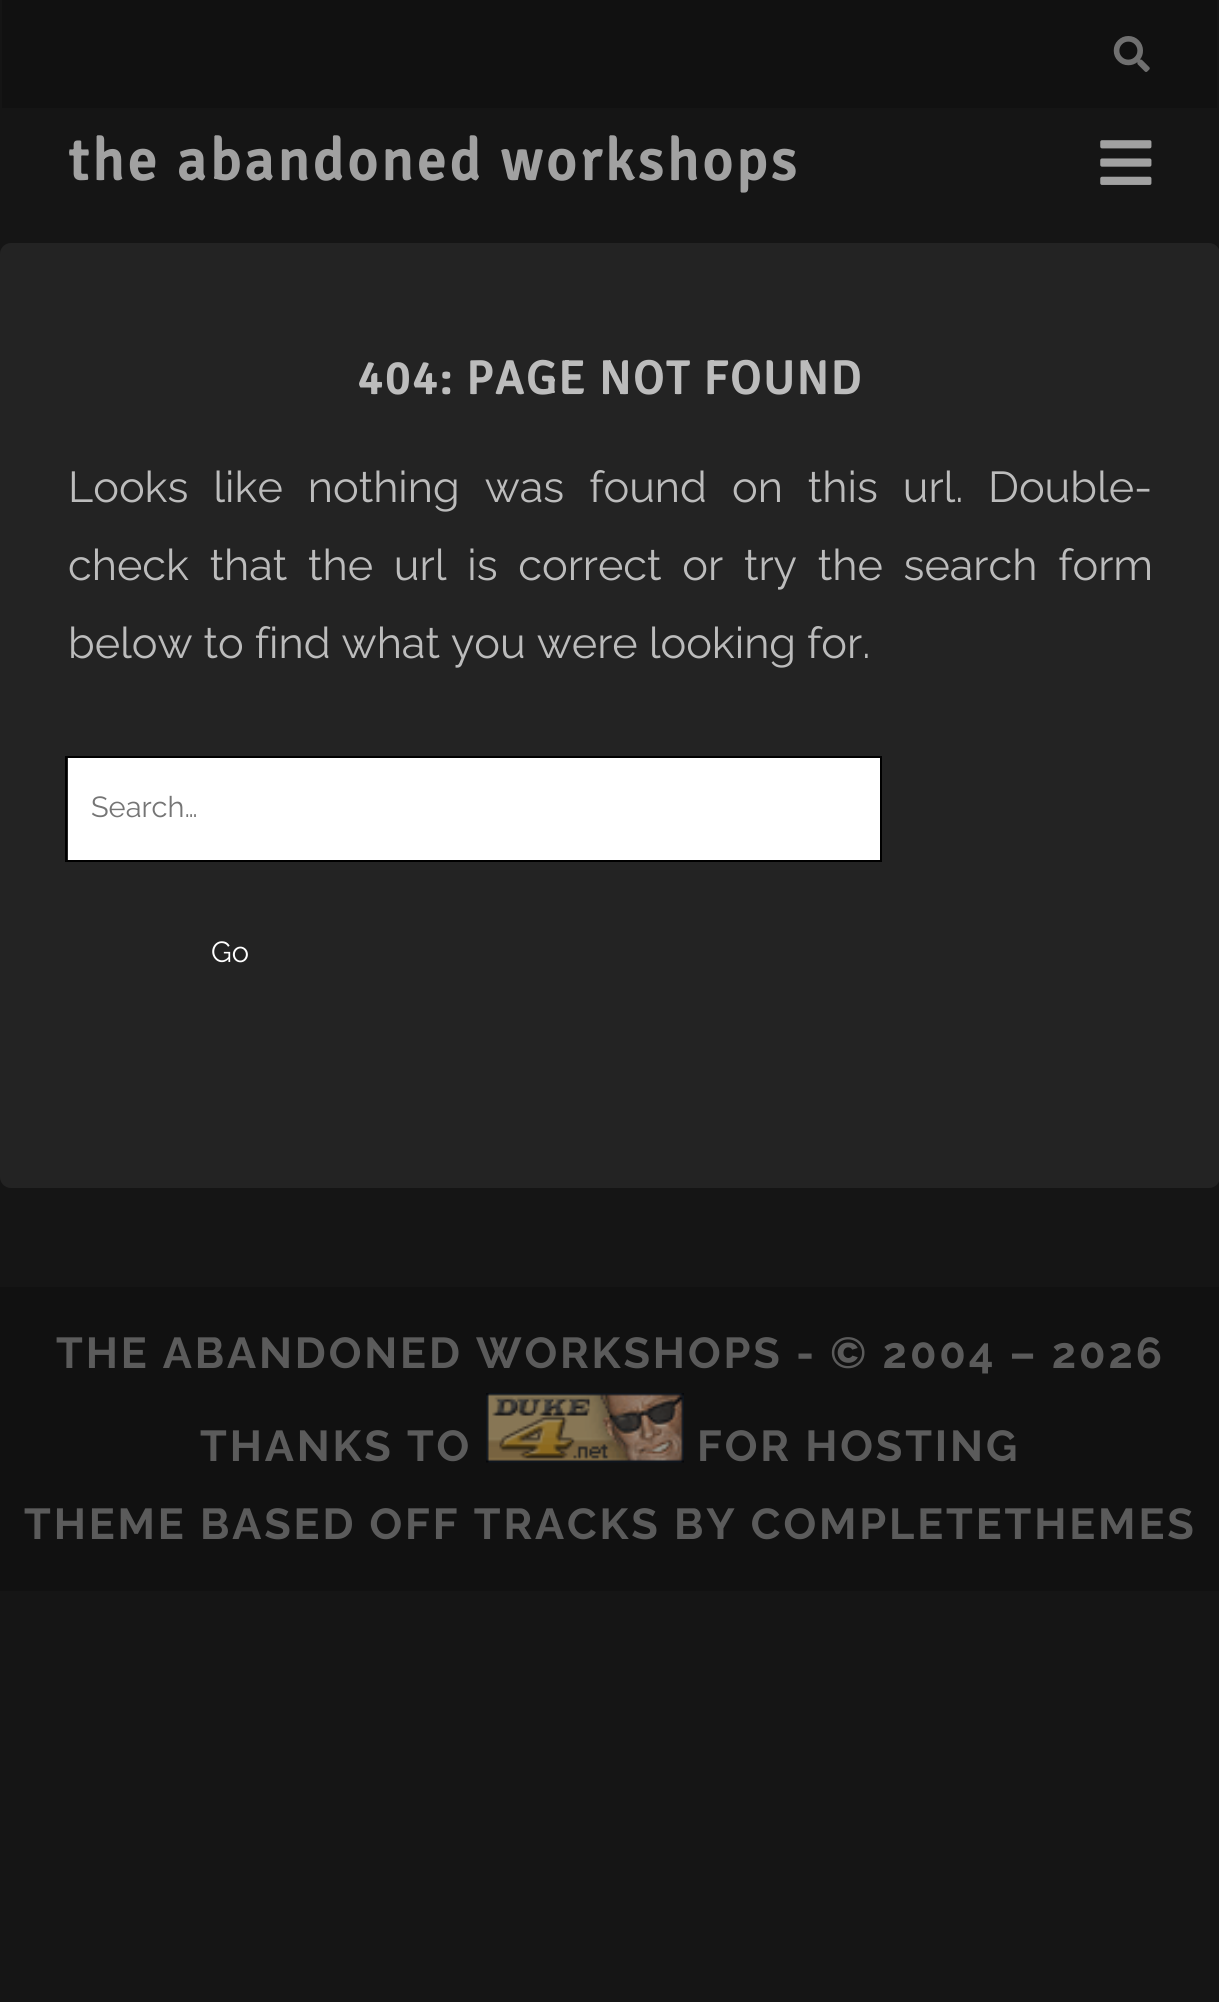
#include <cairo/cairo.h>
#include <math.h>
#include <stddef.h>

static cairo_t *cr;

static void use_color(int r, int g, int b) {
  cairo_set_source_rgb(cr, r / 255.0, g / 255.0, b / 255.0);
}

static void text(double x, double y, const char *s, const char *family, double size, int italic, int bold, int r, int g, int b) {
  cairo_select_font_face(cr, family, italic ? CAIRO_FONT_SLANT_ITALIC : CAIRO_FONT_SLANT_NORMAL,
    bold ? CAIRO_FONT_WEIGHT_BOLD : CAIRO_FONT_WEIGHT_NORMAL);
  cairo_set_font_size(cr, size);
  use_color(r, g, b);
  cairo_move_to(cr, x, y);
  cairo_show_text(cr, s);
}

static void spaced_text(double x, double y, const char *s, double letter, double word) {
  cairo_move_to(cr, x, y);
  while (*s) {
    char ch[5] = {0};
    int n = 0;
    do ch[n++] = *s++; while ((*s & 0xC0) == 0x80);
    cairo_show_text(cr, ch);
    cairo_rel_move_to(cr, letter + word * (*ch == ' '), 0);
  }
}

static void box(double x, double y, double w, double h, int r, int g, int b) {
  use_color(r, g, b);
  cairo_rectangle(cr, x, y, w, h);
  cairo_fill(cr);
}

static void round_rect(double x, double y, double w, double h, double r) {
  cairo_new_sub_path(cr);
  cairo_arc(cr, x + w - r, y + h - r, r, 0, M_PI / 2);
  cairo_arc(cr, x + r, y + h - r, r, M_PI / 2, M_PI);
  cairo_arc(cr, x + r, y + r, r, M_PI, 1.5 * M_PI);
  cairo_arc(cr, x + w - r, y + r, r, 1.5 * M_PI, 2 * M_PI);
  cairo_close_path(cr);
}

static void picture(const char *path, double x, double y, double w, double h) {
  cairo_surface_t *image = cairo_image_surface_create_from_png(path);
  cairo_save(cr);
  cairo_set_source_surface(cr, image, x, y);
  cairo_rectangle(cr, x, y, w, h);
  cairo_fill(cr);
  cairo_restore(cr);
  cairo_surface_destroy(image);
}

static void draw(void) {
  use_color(21, 21, 21);
  cairo_paint(cr);
  box(2, 0, 1215, 108, 17, 17, 17);
  picture("img_01.png", 1113, 36, 37, 36);
  picture("img_02.png", 1100, 140, 52, 45);
  use_color(35, 35, 35);
  round_rect(0, 243, 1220, 945, 11);
  cairo_fill(cr);
  box(68, 758, 812, 102, 255, 255, 255);
  cairo_rectangle(cr, 66, 757, 815, 104);
  use_color(0, 0, 0);
  cairo_stroke(cr);
  box(0, 1287, 1219, 304, 17, 17, 17);
  picture("img_03.png", 486, 1393, 198, 70);
  cairo_select_font_face(cr, "Signika", CAIRO_FONT_SLANT_NORMAL, CAIRO_FONT_WEIGHT_BOLD);
  cairo_set_font_size(cr, 58.5);
  use_color(161, 161, 161);
  spaced_text(68, 180, "the abandoned workshops", 3.5, 0);
  cairo_set_font_size(cr, 47.25);
  use_color(188, 188, 188);
  spaced_text(357, 394, "404: PAGE NOT FOUND", 1.9, 0);
  cairo_select_font_face(cr, "Raleway Thin", CAIRO_FONT_SLANT_NORMAL, CAIRO_FONT_WEIGHT_NORMAL);
  cairo_set_font_size(cr, 43.2);
  spaced_text(68, 502, "Looks like nothing was found on this url.", 0, 14);
  text(988, 502, "Double-", "Raleway Thin", 43.2, 0, 0, 188, 188, 188);
  spaced_text(68, 580, "check that the url is correct or try the search form", 0, 9.75);
  text(68, 658, "below to find what you were looking for.", "Raleway Thin", 43.2, 0, 0, 188, 188, 188);
  text(91, 817, "Search…", "Raleway Thin", 29, 0, 0, 117, 117, 117);
  text(211, 962, "Go", "Raleway Thin", 29, 0, 0, 255, 255, 255);
  cairo_select_font_face(cr, "Raleway", CAIRO_FONT_SLANT_NORMAL, CAIRO_FONT_WEIGHT_BOLD);
  cairo_set_font_size(cr, 43.2);
  use_color(91, 91, 91);
  spaced_text(56, 1368, "THE ABANDONED WORKSHOPS - © 2004 – 2026", 2.9, 0);
  spaced_text(200, 1461, "THANKS TO", 2.9, 0);
  spaced_text(697, 1461, "FOR HOSTING", 2.9, 0);
  spaced_text(24, 1539, "THEME BASED OFF TRACKS BY COMPLETETHEMES", 2.9, 0);
}

int main(void) {
  cairo_surface_t *surface = cairo_image_surface_create(CAIRO_FORMAT_RGB24, 1219, 2002);
  cr = cairo_create(surface);
  cairo_font_options_t *options = cairo_font_options_create();
  cairo_font_options_set_hint_metrics(options, CAIRO_HINT_METRICS_OFF);
  cairo_font_options_set_hint_style(options, CAIRO_HINT_STYLE_NONE);
  cairo_set_font_options(cr, options);
  cairo_set_miter_limit(cr, 4);
  draw();
  cairo_surface_write_to_png(surface, "out.png");
  cairo_font_options_destroy(options);
  cairo_destroy(cr);
  cairo_surface_destroy(surface);
  return 0;
}
